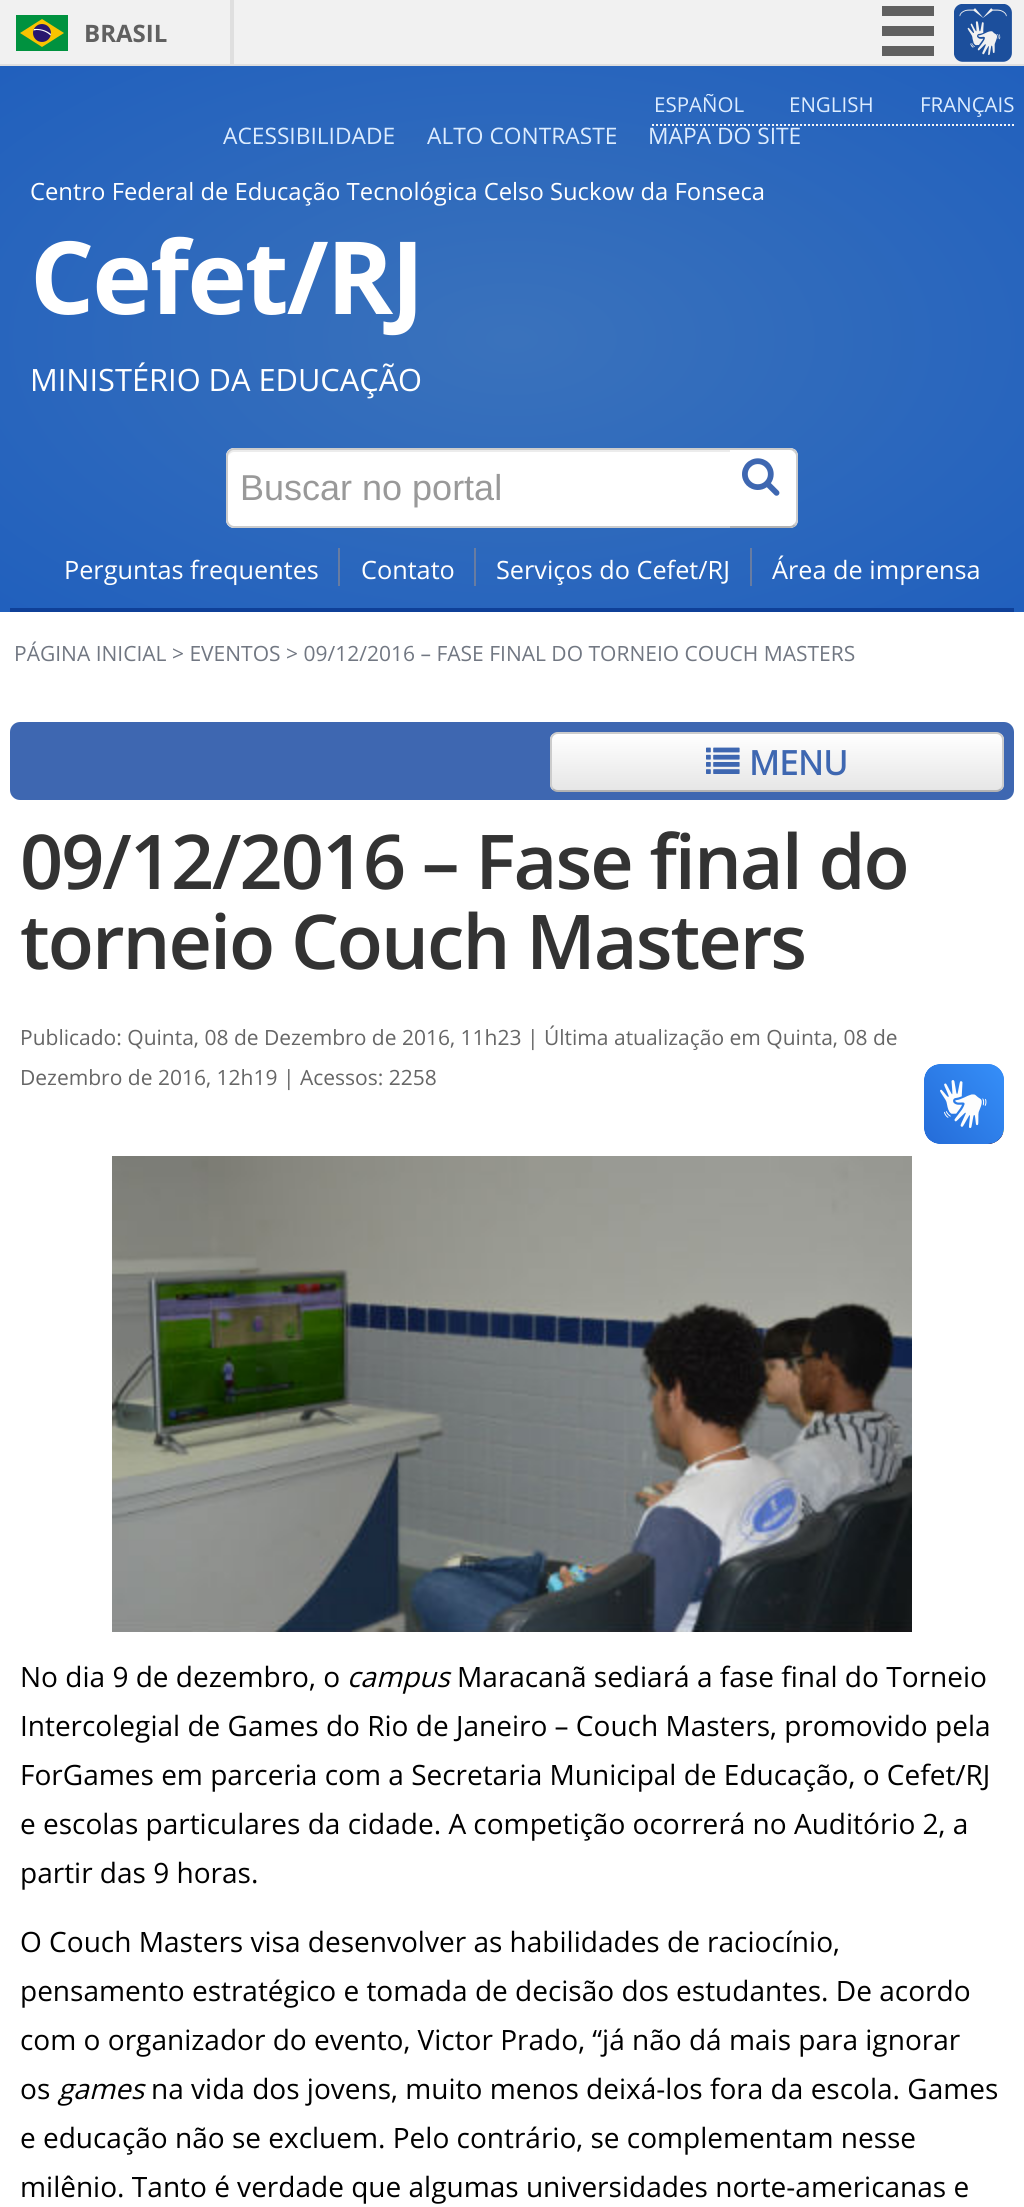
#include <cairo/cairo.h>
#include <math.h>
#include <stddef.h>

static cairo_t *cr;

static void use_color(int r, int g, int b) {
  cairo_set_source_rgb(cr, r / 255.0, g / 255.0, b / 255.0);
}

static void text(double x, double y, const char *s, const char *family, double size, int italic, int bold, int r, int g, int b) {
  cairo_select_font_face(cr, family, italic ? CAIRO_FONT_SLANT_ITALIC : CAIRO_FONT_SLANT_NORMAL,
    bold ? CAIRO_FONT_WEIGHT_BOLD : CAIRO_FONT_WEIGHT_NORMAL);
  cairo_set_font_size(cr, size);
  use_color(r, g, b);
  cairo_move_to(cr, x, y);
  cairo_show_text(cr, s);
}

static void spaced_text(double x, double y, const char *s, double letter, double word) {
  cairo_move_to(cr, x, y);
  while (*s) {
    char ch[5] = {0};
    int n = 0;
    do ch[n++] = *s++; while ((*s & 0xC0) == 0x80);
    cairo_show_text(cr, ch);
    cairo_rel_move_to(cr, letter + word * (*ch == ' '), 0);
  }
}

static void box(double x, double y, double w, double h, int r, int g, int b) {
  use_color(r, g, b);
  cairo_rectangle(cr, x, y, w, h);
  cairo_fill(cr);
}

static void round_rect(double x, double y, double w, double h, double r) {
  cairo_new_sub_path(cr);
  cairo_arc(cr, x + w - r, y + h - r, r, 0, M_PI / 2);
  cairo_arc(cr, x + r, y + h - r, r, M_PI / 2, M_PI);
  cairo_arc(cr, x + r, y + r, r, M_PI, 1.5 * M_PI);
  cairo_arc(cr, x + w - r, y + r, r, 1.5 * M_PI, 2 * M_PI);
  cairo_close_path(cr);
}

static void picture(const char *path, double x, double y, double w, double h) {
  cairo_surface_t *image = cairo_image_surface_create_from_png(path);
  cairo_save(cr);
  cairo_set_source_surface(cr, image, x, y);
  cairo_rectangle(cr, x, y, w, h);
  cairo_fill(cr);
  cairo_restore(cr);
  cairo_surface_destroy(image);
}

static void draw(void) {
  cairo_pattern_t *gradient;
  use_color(255, 255, 255);
  cairo_paint(cr);
  box(0, 0, 1024, 64, 241, 241, 241);
  box(0, 64, 1024, 2, 223, 223, 223);
  box(230, 0, 4, 64, 223, 223, 223);
  box(16, 15, 52, 36, 0, 146, 63);
  use_color(248, 195, 0);
  cairo_new_path(cr);
  cairo_move_to(cr, 42, 19);
  cairo_line_to(cr, 20, 33);
  cairo_line_to(cr, 42, 47);
  cairo_line_to(cr, 64, 33);
  cairo_close_path(cr);
  cairo_fill(cr);
  use_color(40, 22, 111);
  cairo_arc(cr, 42, 33, 9, 0, 2 * M_PI);
  cairo_fill(cr);
  use_color(255, 255, 255);
  cairo_new_path(cr);
  cairo_move_to(cr, 36.5, 30);
  cairo_curve_to(cr, 42, 30, 47, 32, 50.5, 35.5);
  cairo_line_to(cr, 51, 34);
  cairo_curve_to(cr, 46, 30, 40, 28.5, 34, 29);
  cairo_line_to(cr, 33.5, 30.5);
  cairo_close_path(cr);
  cairo_fill(cr);
  box(882, 6, 52, 10, 96, 96, 96);
  box(882, 26, 52, 10, 96, 96, 96);
  box(882, 46, 52, 10, 96, 96, 96);
  picture("img_01.png", 954, 4, 58, 58);
  gradient = cairo_pattern_create_radial(0, 0, 0, 0, 0, 1);
  cairo_pattern_set_matrix(gradient, &(cairo_matrix_t){1.0 / 724, 0, 0, 1.0 / 386, -1.0 * 512 / 724, -1.0 * 339 / 386});
  cairo_pattern_add_color_stop_rgba(gradient, 0.01, 0.227, 0.447, 0.737, 1);
  cairo_pattern_add_color_stop_rgba(gradient, 1, 0.129, 0.376, 0.741, 1);
  cairo_set_source(cr, gradient);
  cairo_pattern_destroy(gradient);
  cairo_rectangle(cr, 0, 66, 1024, 546);
  cairo_fill(cr);
  cairo_new_path(cr);
  cairo_move_to(cr, 652, 125);
  cairo_line_to(cr, 1014, 125);
  use_color(246, 247, 248);
  cairo_set_dash(cr, (double[]){2, 2}, 2, 0);
  cairo_stroke(cr);
  use_color(255, 255, 255);
  cairo_new_path(cr);
  cairo_move_to(cr, 234, 448);
  cairo_line_to(cr, 732, 448);
  cairo_line_to(cr, 732, 528);
  cairo_line_to(cr, 234, 528);
  cairo_curve_to(cr, 229.5, 528, 226, 524.5, 226, 520);
  cairo_line_to(cr, 226, 456);
  cairo_curve_to(cr, 226, 451.5, 229.5, 448, 234, 448);
  cairo_close_path(cr);
  cairo_fill(cr);
  use_color(236, 236, 236);
  cairo_new_path(cr);
  cairo_move_to(cr, 234, 452);
  cairo_line_to(cr, 732, 452);
  cairo_line_to(cr, 732, 450);
  cairo_line_to(cr, 234, 450);
  cairo_curve_to(cr, 229, 450, 228, 454, 228, 458);
  cairo_curve_to(cr, 228, 455, 231, 452, 234, 452);
  cairo_close_path(cr);
  cairo_fill(cr);
  use_color(204, 204, 204);
  cairo_set_fill_rule(cr, CAIRO_FILL_RULE_EVEN_ODD);
  cairo_new_path(cr);
  cairo_move_to(cr, 234, 448);
  cairo_line_to(cr, 732, 448);
  cairo_line_to(cr, 732, 528);
  cairo_line_to(cr, 234, 528);
  cairo_curve_to(cr, 230, 528, 226, 524, 226, 520);
  cairo_line_to(cr, 226, 456);
  cairo_curve_to(cr, 226, 452, 230, 448, 234, 448);
  cairo_close_path(cr);
  cairo_move_to(cr, 234, 450);
  cairo_line_to(cr, 732, 450);
  cairo_line_to(cr, 732, 526);
  cairo_line_to(cr, 234, 526);
  cairo_curve_to(cr, 231, 526, 228, 523, 228, 520);
  cairo_line_to(cr, 228, 456);
  cairo_curve_to(cr, 228, 453, 231, 450, 234, 450);
  cairo_close_path(cr);
  cairo_fill(cr);
  use_color(255, 255, 255);
  cairo_new_path(cr);
  cairo_move_to(cr, 730, 448);
  cairo_line_to(cr, 790, 448);
  cairo_curve_to(cr, 794.5, 448, 798, 451.5, 798, 456);
  cairo_line_to(cr, 798, 520);
  cairo_curve_to(cr, 798, 524.5, 794.5, 528, 790, 528);
  cairo_line_to(cr, 730, 528);
  cairo_close_path(cr);
  cairo_fill(cr);
  use_color(204, 204, 204);
  cairo_set_fill_rule(cr, CAIRO_FILL_RULE_WINDING);
  cairo_new_path(cr);
  cairo_move_to(cr, 730, 448);
  cairo_line_to(cr, 730, 450);
  cairo_line_to(cr, 790, 450);
  cairo_curve_to(cr, 792, 450, 793, 451, 794, 452);
  cairo_line_to(cr, 796, 450);
  cairo_curve_to(cr, 794, 449, 792, 448, 790, 448);
  cairo_close_path(cr);
  cairo_fill(cr);
  cairo_new_path(cr);
  cairo_move_to(cr, 794, 524);
  cairo_curve_to(cr, 795, 523, 796, 522, 796, 520);
  cairo_line_to(cr, 796, 456);
  cairo_curve_to(cr, 796, 454, 795, 453, 794, 452);
  cairo_line_to(cr, 796, 450);
  cairo_curve_to(cr, 797, 452, 798, 454, 798, 456);
  cairo_line_to(cr, 798, 520);
  cairo_curve_to(cr, 798, 522, 797, 524, 796, 526);
  cairo_close_path(cr);
  cairo_fill(cr);
  use_color(179, 179, 179);
  cairo_new_path(cr);
  cairo_move_to(cr, 730, 526);
  cairo_line_to(cr, 730, 528);
  cairo_line_to(cr, 790, 528);
  cairo_curve_to(cr, 792, 528, 794, 527, 796, 526);
  cairo_line_to(cr, 794, 524);
  cairo_curve_to(cr, 793, 525, 792, 526, 790, 526);
  cairo_close_path(cr);
  cairo_fill(cr);
  picture("img_02.png", 742, 458, 38, 38);
  box(10, 608, 1004, 4, 15, 64, 152);
  box(338, 548, 2, 38, 104, 124, 161);
  box(474, 548, 2, 38, 104, 124, 161);
  box(750, 548, 2, 38, 104, 124, 161);
  use_color(62, 103, 177);
  round_rect(10, 722, 1004, 78, 10);
  cairo_fill(cr);
  cairo_save(cr);
  round_rect(550, 732, 454, 60, 8);
  cairo_clip(cr);
  gradient = cairo_pattern_create_linear(777, 734, 777, 790);
  cairo_pattern_add_color_stop_rgba(gradient, 0, 1, 1, 1, 1);
  cairo_pattern_add_color_stop_rgba(gradient, 1, 0.902, 0.902, 0.902, 1);
  cairo_set_source(cr, gradient);
  cairo_pattern_destroy(gradient);
  cairo_rectangle(cr, 550, 734, 454, 56);
  cairo_fill(cr);
  cairo_restore(cr);
  cairo_new_path(cr);
  cairo_move_to(cr, 1001, 789);
  cairo_curve_to(cr, 999.5, 790.5, 998, 791, 996, 791);
  cairo_line_to(cr, 558, 791);
  cairo_curve_to(cr, 556, 791, 554.5, 790.5, 553, 789);
  use_color(179, 179, 179);
  cairo_set_dash(cr, NULL, 0, 0);
  cairo_stroke(cr);
  cairo_new_path(cr);
  cairo_move_to(cr, 553, 789);
  cairo_curve_to(cr, 551.5, 787.5, 551, 786, 551, 784);
  cairo_line_to(cr, 551, 740);
  cairo_curve_to(cr, 551, 738, 551.5, 736.5, 553, 735);
  cairo_curve_to(cr, 554.5, 733.5, 556, 733, 558, 733);
  cairo_line_to(cr, 996, 733);
  cairo_curve_to(cr, 998, 733, 999.5, 733.5, 1001, 735);
  cairo_curve_to(cr, 1002.5, 736.5, 1003, 738, 1003, 740);
  cairo_line_to(cr, 1003, 784);
  cairo_curve_to(cr, 1003, 786, 1002.5, 787.5, 1001, 789);
  use_color(204, 204, 204);
  cairo_stroke(cr);
  picture("img_03.png", 706, 747, 34, 27);
  picture("img_04.png", 112, 1156, 800, 476);
  picture("img_05.png", 924, 1064, 80, 80);
  picture("img_06.png", 924, 1064, 80, 80);
  text(84, 42, "BRASIL", "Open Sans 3", 24, 0, 1, 96, 96, 96);
  cairo_save(cr);
  cairo_rectangle(cr, 10, 94, 1004, 50);
  cairo_clip(cr);
  text(654, 112, "ESPAÑOL", "Open Sans", 20.5, 0, 0, 220, 236, 255);
  cairo_restore(cr);
  text(789, 112, "ENGLISH", "Open Sans", 20.5, 0, 0, 220, 236, 255);
  text(920, 112, "FRANÇAIS", "Open Sans", 20.5, 0, 0, 220, 236, 255);
  cairo_save(cr);
  cairo_rectangle(cr, 10, 94, 1004, 50);
  cairo_clip(cr);
  text(223, 144, "ACESSIBILIDADE", "Open Sans", 22.75, 0, 0, 220, 236, 255);
  text(427, 144, "ALTO CONTRASTE", "Open Sans", 22.75, 0, 0, 220, 236, 255);
  text(648, 144, "MAPA DO SITE", "Open Sans", 22.75, 0, 0, 220, 236, 255);
  cairo_restore(cr);
  text(30, 200, "Centro Federal de Educação Tecnológica Celso Suckow da Fonseca", "Open Sans", 23.8, 0, 0, 255, 255, 255);
  cairo_select_font_face(cr, "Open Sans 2", CAIRO_FONT_SLANT_NORMAL, CAIRO_FONT_WEIGHT_BOLD);
  cairo_set_font_size(cr, 101);
  spaced_text(30, 314, "Cefet/RJ", -2, 0);
  text(30, 391, "MINISTÉRIO DA EDUCAÇÃO", "Open Sans", 30.75, 0, 0, 255, 255, 255);
  text(240, 500, "Buscar no portal", "Liberation Sans", 36, 0, 0, 153, 153, 153);
  text(64, 579, "Perguntas frequentes", "Open Sans", 25.25, 0, 0, 255, 255, 255);
  text(361, 579, "Contato", "Open Sans", 25.25, 0, 0, 255, 255, 255);
  text(496, 579, "Serviços do Cefet/RJ", "Open Sans", 25.25, 0, 0, 255, 255, 255);
  text(772, 579, "Área de imprensa", "Open Sans", 25.25, 0, 0, 255, 255, 255);
  text(14, 661, "PÁGINA INICIAL > EVENTOS > 09/12/2016 – FASE FINAL DO TORNEIO COUCH MASTERS", "Open Sans", 21, 0, 0, 113, 119, 130);
  text(749, 775, "MENU", "Open Sans", 33.5, 0, 1, 62, 103, 177);
  cairo_select_font_face(cr, "Open Sans SemiBold", CAIRO_FONT_SLANT_NORMAL, CAIRO_FONT_WEIGHT_NORMAL);
  cairo_set_font_size(cr, 75.6);
  use_color(51, 51, 51);
  spaced_text(20, 889, "09/12/2016 – Fase final do", -2, 0);
  spaced_text(20, 969, "torneio Couch Masters", -2, 0);
  text(20, 1045, "Publicado: Quinta, 08 de Dezembro de 2016, 11h23 | Última atualização em Quinta, 08 de", "Open Sans", 21, 0, 0, 102, 102, 102);
  text(20, 1085, "Dezembro de 2016, 12h19 | Acessos: 2258", "Open Sans", 21, 0, 0, 102, 102, 102);
  text(20, 1687, "No dia 9 de dezembro, o", "Open Sans", 28, 0, 0, 0, 0, 0);
  text(347, 1687, "campus", "Open Sans", 28, 1, 0, 0, 0, 0);
  text(457, 1687, "Maracanã sediará a fase final do Torneio", "Open Sans", 28, 0, 0, 0, 0, 0);
  text(20, 1736, "Intercolegial de Games do Rio de Janeiro – Couch Masters, promovido pela", "Open Sans", 28, 0, 0, 0, 0, 0);
  text(20, 1785, "ForGames em parceria com a Secretaria Municipal de Educação, o Cefet/RJ", "Open Sans", 28, 0, 0, 0, 0, 0);
  text(20, 1834, "e escolas particulares da cidade. A competição ocorrerá no Auditório 2, a", "Open Sans", 28, 0, 0, 0, 0, 0);
  text(20, 1883, "partir das 9 horas.", "Open Sans", 28, 0, 0, 0, 0, 0);
  text(20, 1952, "O Couch Masters visa desenvolver as habilidades de raciocínio,", "Open Sans", 28, 0, 0, 0, 0, 0);
  text(20, 2001, "pensamento estratégico e tomada de decisão dos estudantes. De acordo", "Open Sans", 28, 0, 0, 0, 0, 0);
  text(20, 2050, "com o organizador do evento, Victor Prado, “já não dá mais para ignorar", "Open Sans", 28, 0, 0, 0, 0, 0);
  text(20, 2099, "os", "Open Sans", 28, 0, 0, 0, 0, 0);
  text(58, 2099, "games", "Open Sans", 28, 1, 0, 0, 0, 0);
  text(151, 2099, "na vida dos jovens, muito menos deixá-los fora da escola. Games", "Open Sans", 28, 0, 0, 0, 0, 0);
  text(20, 2148, "e educação não se excluem. Pelo contrário, se complementam nesse", "Open Sans", 28, 0, 0, 0, 0, 0);
  text(20, 2197, "milênio. Tanto é verdade que algumas universidades norte-americanas e", "Open Sans", 28, 0, 0, 0, 0, 0);
}

int main(void) {
  cairo_surface_t *surface = cairo_image_surface_create(CAIRO_FORMAT_RGB24, 1024, 2207);
  cr = cairo_create(surface);
  cairo_font_options_t *options = cairo_font_options_create();
  cairo_font_options_set_hint_metrics(options, CAIRO_HINT_METRICS_OFF);
  cairo_font_options_set_hint_style(options, CAIRO_HINT_STYLE_NONE);
  cairo_set_font_options(cr, options);
  cairo_set_miter_limit(cr, 4);
  draw();
  cairo_surface_write_to_png(surface, "out.png");
  cairo_font_options_destroy(options);
  cairo_destroy(cr);
  cairo_surface_destroy(surface);
  return 0;
}
